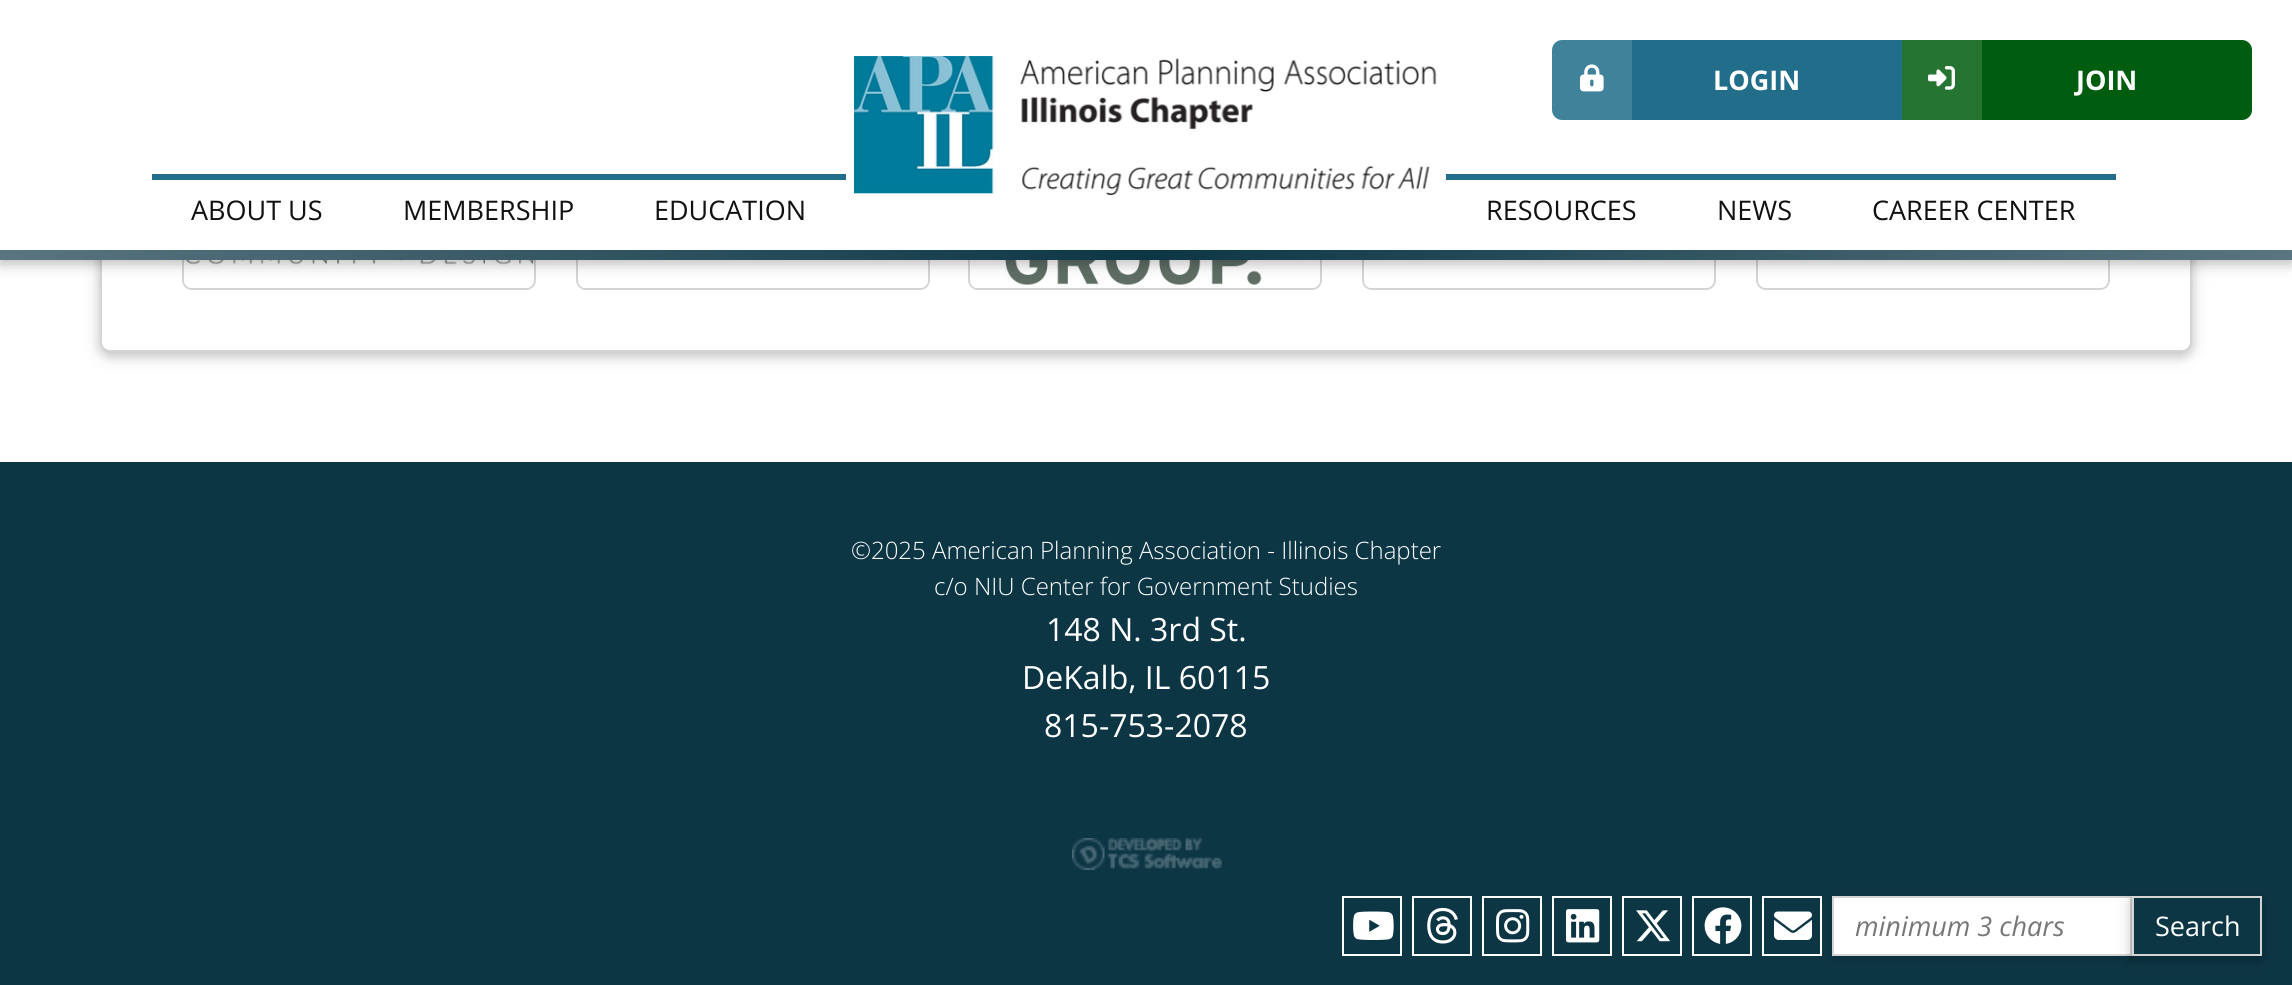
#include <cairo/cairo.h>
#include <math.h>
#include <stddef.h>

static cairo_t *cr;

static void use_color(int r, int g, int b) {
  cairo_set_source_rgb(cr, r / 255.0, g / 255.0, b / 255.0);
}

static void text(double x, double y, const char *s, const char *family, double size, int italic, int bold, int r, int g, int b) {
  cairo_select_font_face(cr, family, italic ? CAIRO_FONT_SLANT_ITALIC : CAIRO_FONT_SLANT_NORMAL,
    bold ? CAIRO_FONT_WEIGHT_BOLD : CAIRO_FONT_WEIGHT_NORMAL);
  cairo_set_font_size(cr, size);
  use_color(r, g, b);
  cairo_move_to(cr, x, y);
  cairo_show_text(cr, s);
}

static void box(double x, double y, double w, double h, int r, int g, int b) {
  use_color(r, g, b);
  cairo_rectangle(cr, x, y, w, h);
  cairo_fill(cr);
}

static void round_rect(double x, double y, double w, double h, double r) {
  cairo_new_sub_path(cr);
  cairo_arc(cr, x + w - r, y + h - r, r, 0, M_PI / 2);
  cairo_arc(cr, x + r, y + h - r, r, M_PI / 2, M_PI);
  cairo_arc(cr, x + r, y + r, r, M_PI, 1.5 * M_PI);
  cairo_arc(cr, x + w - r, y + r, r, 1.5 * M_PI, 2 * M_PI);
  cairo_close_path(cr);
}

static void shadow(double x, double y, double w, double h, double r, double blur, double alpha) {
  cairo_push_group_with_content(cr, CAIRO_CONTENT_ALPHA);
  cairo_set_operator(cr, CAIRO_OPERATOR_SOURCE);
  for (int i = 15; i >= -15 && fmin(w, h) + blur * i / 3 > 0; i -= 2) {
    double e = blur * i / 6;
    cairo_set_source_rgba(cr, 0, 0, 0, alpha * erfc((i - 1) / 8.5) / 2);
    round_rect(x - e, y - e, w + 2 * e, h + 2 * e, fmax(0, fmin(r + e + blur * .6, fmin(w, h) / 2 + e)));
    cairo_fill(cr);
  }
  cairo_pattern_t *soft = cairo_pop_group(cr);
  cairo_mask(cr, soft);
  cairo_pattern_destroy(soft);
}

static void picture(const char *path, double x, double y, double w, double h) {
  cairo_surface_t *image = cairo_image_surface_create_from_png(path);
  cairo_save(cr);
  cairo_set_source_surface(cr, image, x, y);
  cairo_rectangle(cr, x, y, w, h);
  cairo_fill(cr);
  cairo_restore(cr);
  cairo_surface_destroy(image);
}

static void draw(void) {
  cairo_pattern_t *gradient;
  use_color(13, 54, 69);
  cairo_paint(cr);
  box(0, 260, 2292, 202, 255, 255, 255);
  use_color(0, 0, 0);
  shadow(100, -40, 2092, 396, 10, 10, 0.12);
  shadow(100, -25, 2092, 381, 10, 5, 0.16);
  use_color(255, 255, 255);
  round_rect(101, -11, 2090, 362, 9);
  cairo_fill_preserve(cr);
  use_color(212, 212, 212);
  cairo_stroke(cr);
  round_rect(183, 57, 352, 232, 9);
  cairo_stroke(cr);
  picture("img_01.png", 184, 260, 350, 28);
  round_rect(577, 57, 352, 232, 9);
  cairo_stroke(cr);
  picture("img_02.png", 578, 260, 350, 28);
  round_rect(969, 57, 352, 232, 9);
  cairo_stroke(cr);
  picture("img_03.png", 970, 260, 350, 28);
  round_rect(1363, 57, 352, 232, 9);
  cairo_stroke(cr);
  picture("img_02.png", 1364, 260, 350, 28);
  round_rect(1757, 57, 352, 232, 9);
  cairo_stroke(cr);
  picture("img_04.png", 1758, 260, 350, 28);
  use_color(0, 0, 0);
  shadow(0, 4, 2292, 260, 0, 10, 0.12);
  shadow(0, 4, 2292, 260, 0, 5, 0.16);
  box(0, 0, 2292, 250, 255, 255, 255);
  picture("img_05.png", 854, 56, 583, 140);
  use_color(34, 110, 138);
  cairo_new_path(cr);
  cairo_move_to(cr, 1562, 40);
  cairo_line_to(cr, 1902, 40);
  cairo_line_to(cr, 1902, 120);
  cairo_line_to(cr, 1562, 120);
  cairo_curve_to(cr, 1556.5, 120, 1552, 115.5, 1552, 110);
  cairo_line_to(cr, 1552, 50);
  cairo_curve_to(cr, 1552, 44.5, 1556.5, 40, 1562, 40);
  cairo_close_path(cr);
  cairo_fill(cr);
  cairo_set_source_rgba(cr, 1, 1, 1, 0.14);
  cairo_rectangle(cr, 1552, 40, 80, 80);
  cairo_fill(cr);
  picture("img_06.png", 1580, 64, 24, 28);
  use_color(0, 92, 14);
  cairo_new_path(cr);
  cairo_move_to(cr, 1902, 40);
  cairo_line_to(cr, 2242, 40);
  cairo_curve_to(cr, 2247.5, 40, 2252, 44.5, 2252, 50);
  cairo_line_to(cr, 2252, 110);
  cairo_curve_to(cr, 2252, 115.5, 2247.5, 120, 2242, 120);
  cairo_line_to(cr, 1902, 120);
  cairo_close_path(cr);
  cairo_fill(cr);
  box(1902, 40, 80, 80, 37, 116, 49);
  picture("img_07.png", 1928, 66, 27, 24);
  box(152, 174, 694, 6, 34, 110, 138);
  box(1446, 174, 670, 6, 34, 110, 138);
  gradient = cairo_pattern_create_linear(0, 255, 2292, 255);
  cairo_pattern_add_color_stop_rgba(gradient, 0, 0.349, 0.459, 0.498, 1);
  cairo_pattern_add_color_stop_rgba(gradient, 0.5, 0.051, 0.212, 0.271, 1);
  cairo_pattern_add_color_stop_rgba(gradient, 1, 0.349, 0.459, 0.498, 1);
  cairo_set_source(cr, gradient);
  cairo_pattern_destroy(gradient);
  cairo_rectangle(cr, 0, 250, 2292, 10);
  cairo_fill(cr);
  picture("img_08.png", 1072, 838, 150, 32);
  cairo_rectangle(cr, 1343, 897, 58, 58);
  use_color(255, 255, 255);
  cairo_stroke(cr);
  picture("img_09.png", 1353, 911, 41, 29);
  cairo_rectangle(cr, 1413, 897, 58, 58);
  cairo_stroke(cr);
  picture("img_10.png", 1427, 907, 31, 37);
  cairo_rectangle(cr, 1483, 897, 58, 58);
  cairo_stroke(cr);
  picture("img_11.png", 1496, 909, 34, 34);
  cairo_rectangle(cr, 1553, 897, 58, 58);
  cairo_stroke(cr);
  picture("img_12.png", 1566, 909, 34, 34);
  cairo_rectangle(cr, 1623, 897, 58, 58);
  cairo_stroke(cr);
  picture("img_13.png", 1636, 910, 34, 32);
  cairo_rectangle(cr, 1693, 897, 58, 58);
  cairo_stroke(cr);
  picture("img_14.png", 1704, 907, 38, 37);
  use_color(0, 0, 0);
  shadow(1832, 900, 300, 60, 0, 5, 0.16);
  cairo_rectangle(cr, 1763, 897, 58, 58);
  use_color(255, 255, 255);
  cairo_stroke(cr);
  picture("img_15.png", 1774, 911, 38, 29);
  cairo_rectangle(cr, 1833, 897, 298, 58);
  cairo_fill_preserve(cr);
  use_color(212, 212, 212);
  cairo_stroke(cr);
  use_color(0, 0, 0);
  shadow(2132, 900, 130, 60, 0, 10, 0.12);
  shadow(2132, 900, 130, 60, 0, 5, 0.16);
  use_color(13, 54, 69);
  cairo_rectangle(cr, 2133, 897, 128, 58);
  cairo_fill_preserve(cr);
  use_color(212, 212, 212);
  cairo_stroke(cr);
  text(1713, 90, "LOGIN", "Open Sans", 27, 0, 1, 255, 255, 255);
  text(2076, 90, "JOIN", "Open Sans", 27, 0, 1, 255, 255, 255);
  text(191, 220, "ABOUT US", "Open Sans", 27, 0, 0, 17, 17, 17);
  text(403, 220, "MEMBERSHIP", "Open Sans", 27, 0, 0, 17, 17, 17);
  text(654, 220, "EDUCATION", "Open Sans", 27, 0, 0, 17, 17, 17);
  text(1486, 220, "RESOURCES", "Open Sans", 27, 0, 0, 17, 17, 17);
  text(1717, 220, "NEWS", "Open Sans", 27, 0, 0, 17, 17, 17);
  text(1872, 220, "CAREER CENTER", "Open Sans", 27, 0, 0, 17, 17, 17);
  text(851, 559, "©2025 American Planning Association - Illinois Chapter", "Open Sans Light", 24, 0, 0, 255, 255, 255);
  text(934, 595, "c/o NIU Center for Government Studies", "Open Sans Light", 24, 0, 0, 255, 255, 255);
  text(1046, 641, "148 N. 3rd St.", "Open Sans", 32, 0, 0, 255, 255, 255);
  text(1022, 689, "DeKalb, IL 60115", "Open Sans", 32, 0, 0, 255, 255, 255);
  text(1044, 737, "815-753-2078", "Open Sans", 32, 0, 0, 255, 255, 255);
  text(1855, 936, "minimum 3 chars", "Open Sans", 27, 1, 0, 119, 119, 119);
  text(2155, 936, "Search", "Open Sans", 27, 0, 0, 255, 255, 255);
}

int main(void) {
  cairo_surface_t *surface = cairo_image_surface_create(CAIRO_FORMAT_RGB24, 2292, 985);
  cr = cairo_create(surface);
  cairo_font_options_t *options = cairo_font_options_create();
  cairo_font_options_set_hint_metrics(options, CAIRO_HINT_METRICS_OFF);
  cairo_font_options_set_hint_style(options, CAIRO_HINT_STYLE_NONE);
  cairo_set_font_options(cr, options);
  cairo_set_miter_limit(cr, 4);
  draw();
  cairo_surface_write_to_png(surface, "out.png");
  cairo_font_options_destroy(options);
  cairo_destroy(cr);
  cairo_surface_destroy(surface);
  return 0;
}
